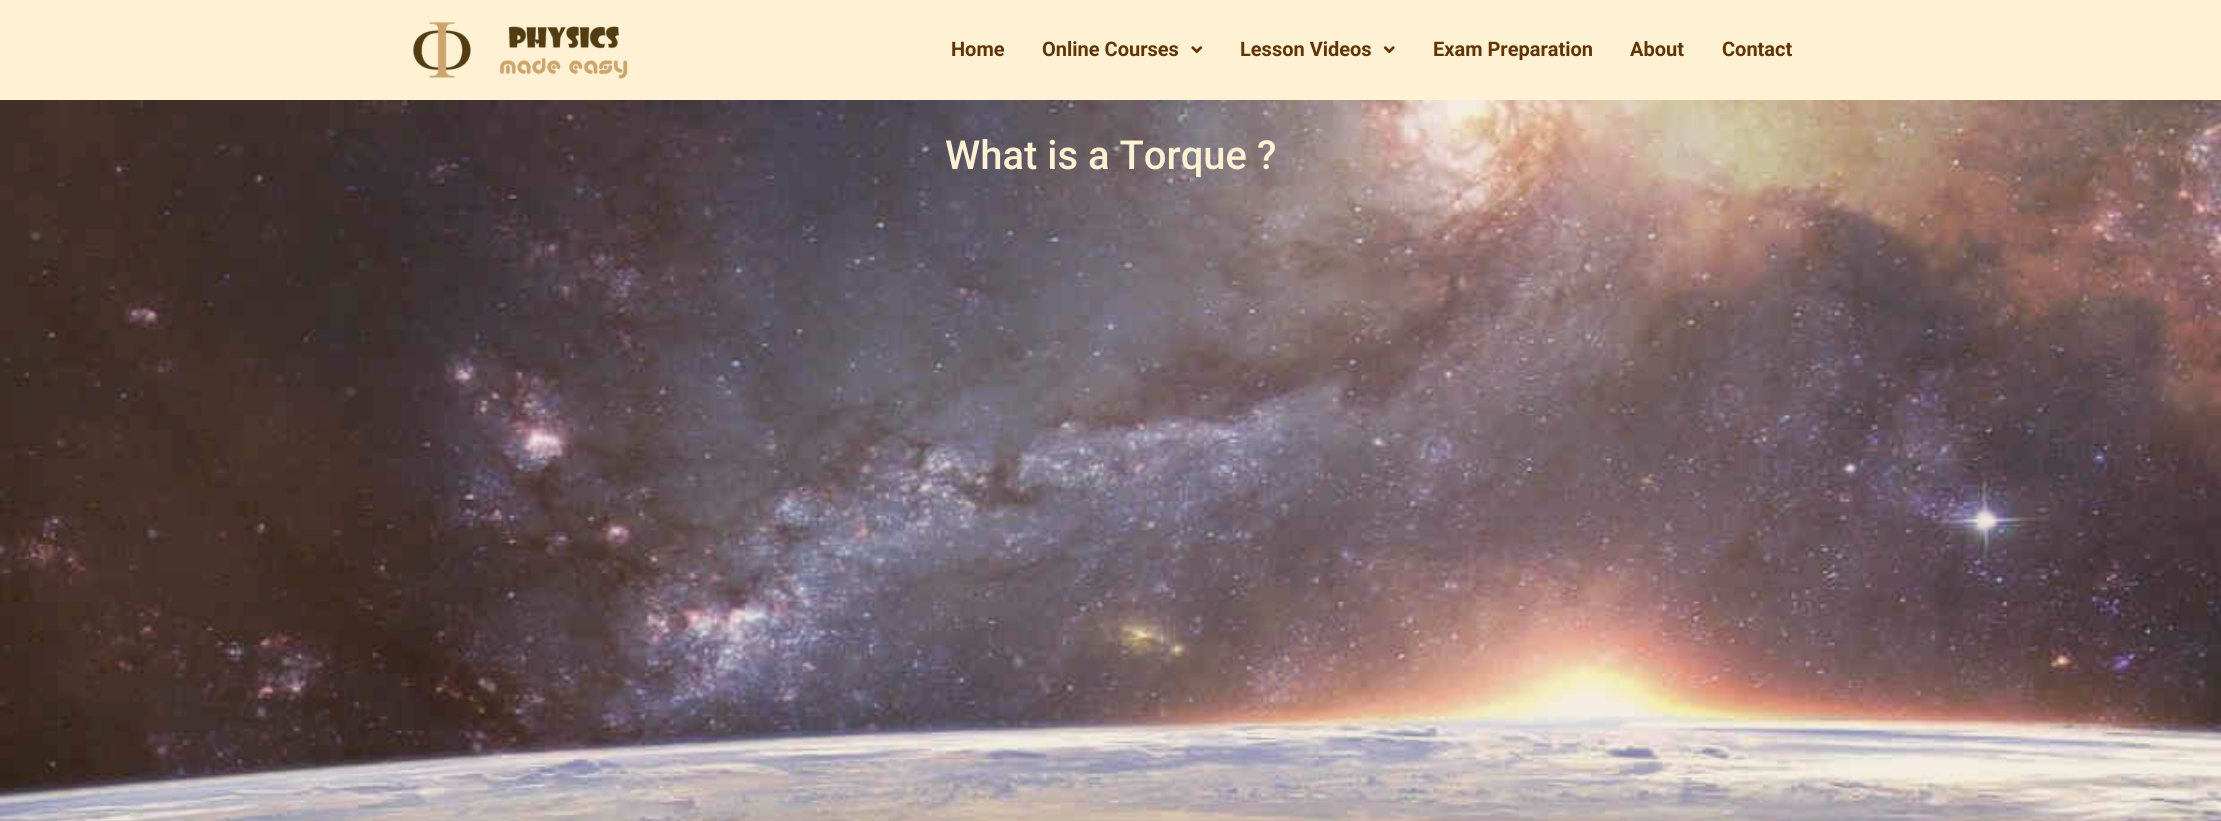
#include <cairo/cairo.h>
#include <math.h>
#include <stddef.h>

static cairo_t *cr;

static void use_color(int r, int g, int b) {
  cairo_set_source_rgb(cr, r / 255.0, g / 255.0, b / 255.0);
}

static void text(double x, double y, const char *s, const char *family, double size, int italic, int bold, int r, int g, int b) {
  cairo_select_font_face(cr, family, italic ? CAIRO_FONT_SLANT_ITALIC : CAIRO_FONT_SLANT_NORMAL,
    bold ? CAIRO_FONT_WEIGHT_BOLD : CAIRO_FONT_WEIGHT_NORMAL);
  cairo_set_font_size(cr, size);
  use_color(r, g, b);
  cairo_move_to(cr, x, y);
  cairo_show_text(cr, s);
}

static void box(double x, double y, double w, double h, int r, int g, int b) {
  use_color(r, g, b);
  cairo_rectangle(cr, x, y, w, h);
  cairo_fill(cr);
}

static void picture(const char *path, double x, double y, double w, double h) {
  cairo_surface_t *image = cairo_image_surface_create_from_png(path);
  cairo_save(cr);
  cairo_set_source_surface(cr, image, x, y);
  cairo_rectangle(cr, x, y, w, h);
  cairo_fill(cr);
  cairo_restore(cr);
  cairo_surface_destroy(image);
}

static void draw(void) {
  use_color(255, 255, 255);
  cairo_paint(cr);
  box(0, 0, 2221, 100, 255, 241, 212);
  picture("img_01.png", 412, 21, 216, 58);
  picture("img_02.png", 1191, 46, 12, 8);
  picture("img_03.png", 1383, 46, 12, 8);
  picture("img_04.png", 0, 100, 2221, 721);
  text(951, 56, "Home", "Roboto", 20, 0, 1, 97, 52, 4);
  text(1042, 56, "Online Courses", "Roboto", 20, 0, 1, 97, 52, 4);
  text(1240, 56, "Lesson Videos", "Roboto", 20, 0, 1, 97, 52, 4);
  text(1433, 56, "Exam Preparation", "Roboto", 20, 0, 1, 97, 52, 4);
  text(1630, 56, "About", "Roboto", 20, 0, 1, 97, 52, 4);
  text(1722, 56, "Contact", "Roboto", 20, 0, 1, 97, 52, 4);
  text(945, 169, "What is a Torque ?", "Roboto Medium", 40, 0, 0, 255, 241, 212);
}

int main(void) {
  cairo_surface_t *surface = cairo_image_surface_create(CAIRO_FORMAT_RGB24, 2221, 821);
  cr = cairo_create(surface);
  cairo_font_options_t *options = cairo_font_options_create();
  cairo_font_options_set_hint_metrics(options, CAIRO_HINT_METRICS_OFF);
  cairo_font_options_set_hint_style(options, CAIRO_HINT_STYLE_NONE);
  cairo_set_font_options(cr, options);
  cairo_set_miter_limit(cr, 4);
  draw();
  cairo_surface_write_to_png(surface, "out.png");
  cairo_font_options_destroy(options);
  cairo_destroy(cr);
  cairo_surface_destroy(surface);
  return 0;
}
